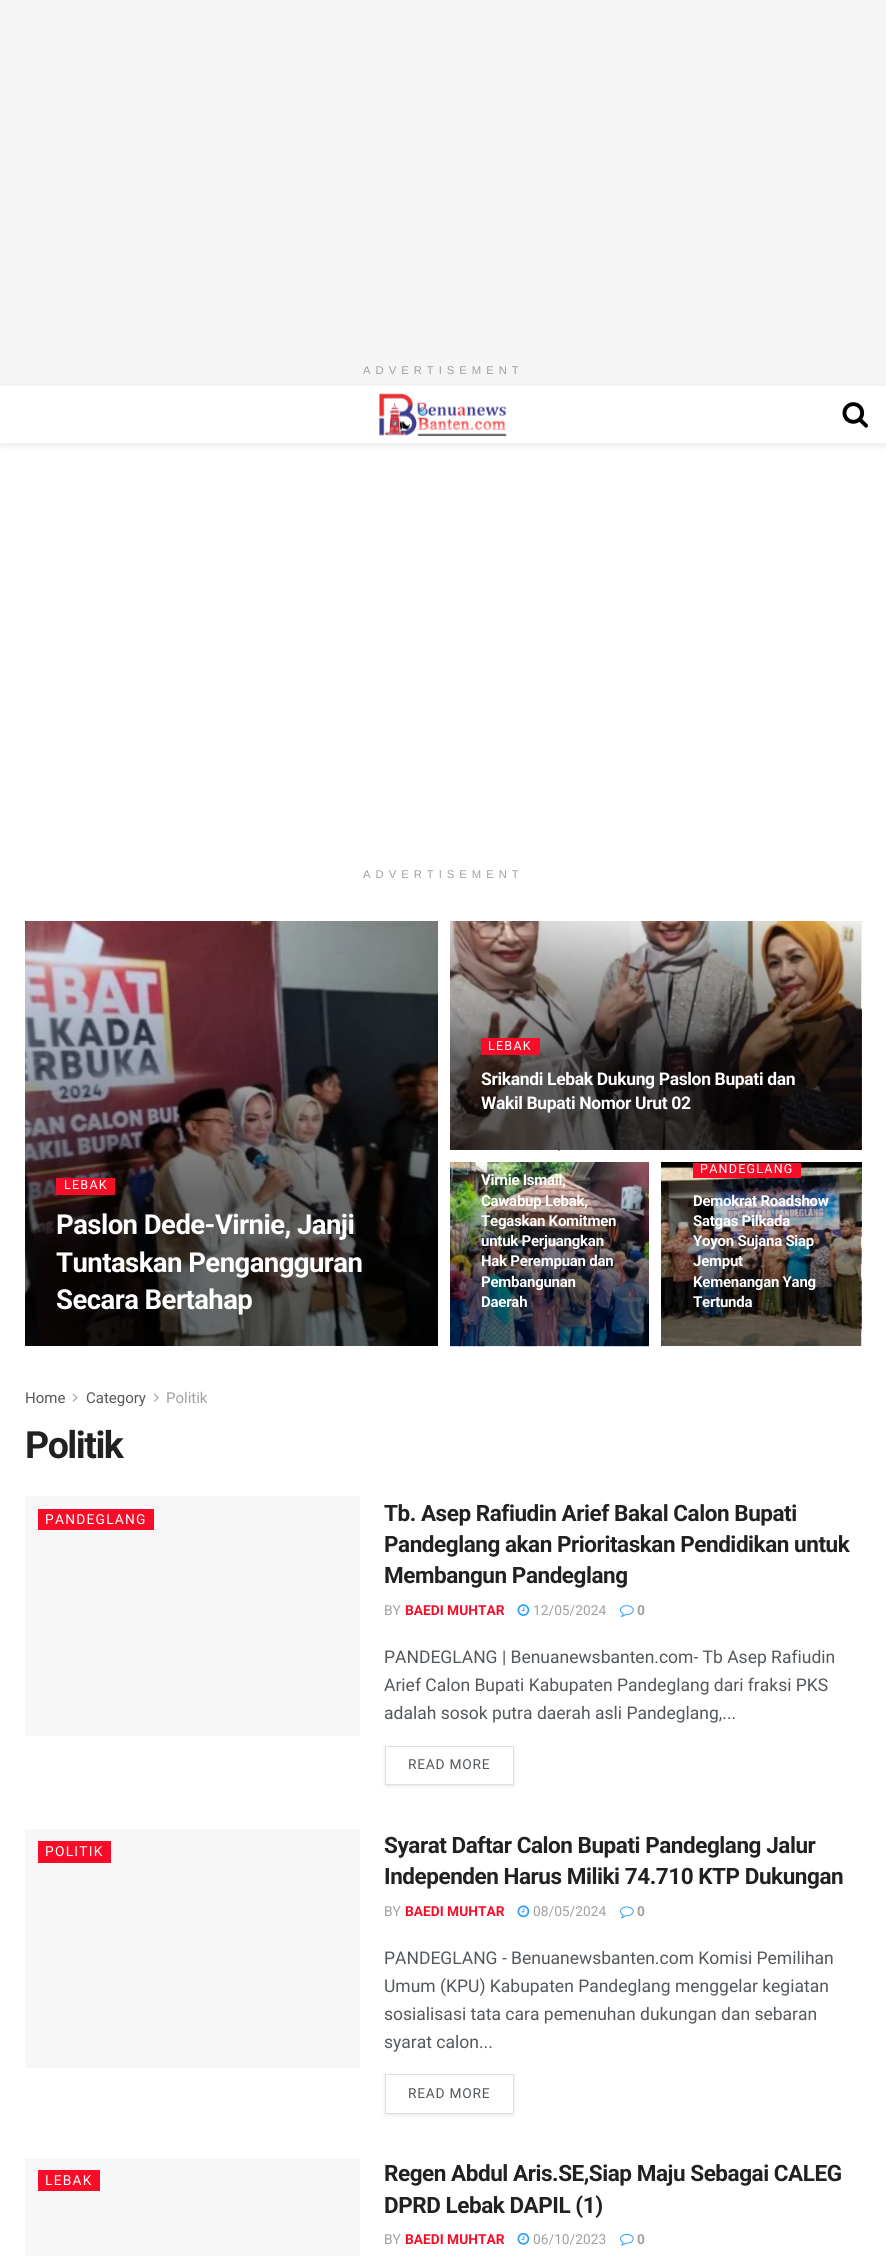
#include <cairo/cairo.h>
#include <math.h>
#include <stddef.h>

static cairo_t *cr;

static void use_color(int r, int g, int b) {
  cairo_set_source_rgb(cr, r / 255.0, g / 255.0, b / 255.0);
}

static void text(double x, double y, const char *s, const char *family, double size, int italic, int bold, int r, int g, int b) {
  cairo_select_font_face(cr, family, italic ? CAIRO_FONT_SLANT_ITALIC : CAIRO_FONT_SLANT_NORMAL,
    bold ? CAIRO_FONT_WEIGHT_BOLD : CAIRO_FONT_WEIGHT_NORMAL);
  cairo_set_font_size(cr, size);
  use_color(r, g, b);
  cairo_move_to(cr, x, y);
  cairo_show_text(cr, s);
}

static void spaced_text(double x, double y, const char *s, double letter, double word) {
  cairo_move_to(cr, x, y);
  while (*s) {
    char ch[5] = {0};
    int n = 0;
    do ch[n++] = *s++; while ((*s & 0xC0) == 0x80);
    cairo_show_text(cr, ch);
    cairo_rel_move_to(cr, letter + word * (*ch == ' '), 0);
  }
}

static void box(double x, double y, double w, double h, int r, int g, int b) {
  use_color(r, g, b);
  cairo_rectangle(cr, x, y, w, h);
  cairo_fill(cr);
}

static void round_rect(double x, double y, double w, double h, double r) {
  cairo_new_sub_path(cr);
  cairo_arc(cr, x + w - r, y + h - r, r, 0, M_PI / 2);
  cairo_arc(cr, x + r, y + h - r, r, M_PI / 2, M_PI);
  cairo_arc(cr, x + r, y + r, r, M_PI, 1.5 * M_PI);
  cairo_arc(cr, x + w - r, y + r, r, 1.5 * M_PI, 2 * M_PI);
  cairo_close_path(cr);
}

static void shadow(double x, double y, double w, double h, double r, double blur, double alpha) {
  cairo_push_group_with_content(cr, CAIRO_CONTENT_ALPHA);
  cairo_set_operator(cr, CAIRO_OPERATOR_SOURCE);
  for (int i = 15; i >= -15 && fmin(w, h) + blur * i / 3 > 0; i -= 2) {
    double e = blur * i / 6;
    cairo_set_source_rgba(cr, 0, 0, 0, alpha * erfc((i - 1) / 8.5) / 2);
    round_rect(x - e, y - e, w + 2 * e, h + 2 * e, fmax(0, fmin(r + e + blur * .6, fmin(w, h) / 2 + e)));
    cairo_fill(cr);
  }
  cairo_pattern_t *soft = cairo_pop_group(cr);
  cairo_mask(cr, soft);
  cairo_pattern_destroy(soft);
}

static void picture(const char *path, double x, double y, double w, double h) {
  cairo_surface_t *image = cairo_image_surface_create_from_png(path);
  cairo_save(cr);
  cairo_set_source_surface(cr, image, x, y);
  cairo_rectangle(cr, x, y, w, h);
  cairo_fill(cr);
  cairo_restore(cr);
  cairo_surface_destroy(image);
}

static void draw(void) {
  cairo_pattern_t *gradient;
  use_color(255, 255, 255);
  cairo_paint(cr);
  use_color(0, 0, 0);
  shadow(0, 389, 886, 56, 0, 4, 0.1);
  box(0, 0, 886, 386, 245, 245, 245);
  box(0, 386, 886, 57, 255, 255, 255);
  picture("img_01.png", 379, 393, 128, 44);
  picture("img_02.png", 842, 402, 26, 26);
  picture("img_03.png", 25, 921, 413, 425);
  box(56, 1178, 59, 17, 247, 13, 40);
  picture("img_04.png", 450, 921, 412, 229);
  box(481, 1038, 59, 17, 247, 13, 40);
  picture("img_05.png", 450, 1162, 199, 185);
  picture("img_06.png", 661, 1162, 201, 184);
  gradient = cairo_pattern_create_linear(743, 1163, 743, 1346);
  cairo_pattern_add_color_stop_rgba(gradient, 0, 0, 0, 0, 0);
  cairo_pattern_add_color_stop_rgba(gradient, 0.65, 0, 0, 0, 0.6);
  cairo_pattern_add_color_stop_rgba(gradient, 1, 0, 0, 0, 0.6);
  cairo_set_source(cr, gradient);
  cairo_pattern_destroy(gradient);
  cairo_rectangle(cr, 661, 1168, 200, 178);
  cairo_fill(cr);
  box(693, 1163, 108, 15, 247, 13, 40);
  picture("img_07.png", 72, 1393, 6, 9);
  picture("img_08.png", 154, 1393, 5, 9);
  box(25, 1496, 335, 240, 247, 247, 247);
  box(38, 1509, 116, 21, 247, 13, 40);
  picture("img_09.png", 517, 1604, 13, 12);
  picture("img_10.png", 620, 1605, 14, 12);
  cairo_save(cr);
  cairo_set_fill_rule(cr, CAIRO_FILL_RULE_EVEN_ODD);
  cairo_new_path(cr);
  cairo_move_to(cr, 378, 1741);
  cairo_line_to(cr, 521, 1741);
  cairo_line_to(cr, 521, 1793);
  cairo_line_to(cr, 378, 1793);
  cairo_close_path(cr);
  cairo_move_to(cr, 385, 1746);
  cairo_line_to(cr, 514, 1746);
  cairo_line_to(cr, 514, 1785);
  cairo_line_to(cr, 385, 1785);
  cairo_close_path(cr);
  cairo_clip(cr);
  use_color(0, 0, 0);
  shadow(385, 1748, 129, 38, 0, 2, 0.1);
  cairo_restore(cr);
  cairo_rectangle(cr, 385.5, 1746.5, 128, 38);
  use_color(224, 224, 224);
  cairo_set_line_width(cr, 1);
  cairo_stroke(cr);
  box(25, 1829, 335, 239, 247, 247, 247);
  box(38, 1841, 73, 22, 247, 13, 40);
  picture("img_11.png", 517, 1905, 13, 13);
  picture("img_12.png", 620, 1906, 14, 13);
  cairo_save(cr);
  cairo_set_fill_rule(cr, CAIRO_FILL_RULE_EVEN_ODD);
  cairo_new_path(cr);
  cairo_move_to(cr, 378, 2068);
  cairo_line_to(cr, 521, 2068);
  cairo_line_to(cr, 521, 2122);
  cairo_line_to(cr, 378, 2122);
  cairo_close_path(cr);
  cairo_move_to(cr, 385, 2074);
  cairo_line_to(cr, 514, 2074);
  cairo_line_to(cr, 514, 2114);
  cairo_line_to(cr, 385, 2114);
  cairo_close_path(cr);
  cairo_clip(cr);
  use_color(0, 0, 0);
  shadow(385, 2075, 129, 40, 0, 2, 0.1);
  cairo_restore(cr);
  cairo_rectangle(cr, 385.5, 2074.5, 128, 39);
  use_color(224, 224, 224);
  cairo_stroke(cr);
  box(25, 2158, 335, 98, 247, 247, 247);
  box(38, 2170, 62, 21, 247, 13, 40);
  picture("img_13.png", 517, 2232, 13, 13);
  picture("img_14.png", 620, 2233, 14, 13);
  cairo_select_font_face(cr, "Liberation Sans", CAIRO_FONT_SLANT_NORMAL, CAIRO_FONT_WEIGHT_NORMAL);
  cairo_set_font_size(cr, 11.25);
  use_color(160, 160, 160);
  spaced_text(363, 374, "ADVERTISEMENT", 5, 0);
  spaced_text(363, 878, "ADVERTISEMENT", 5, 0);
  cairo_select_font_face(cr, "Roboto", CAIRO_FONT_SLANT_NORMAL, CAIRO_FONT_WEIGHT_NORMAL);
  cairo_set_font_size(cr, 12.5);
  use_color(255, 255, 255);
  spaced_text(64, 1189, "LEBAK", 1.25, 0);
  cairo_select_font_face(cr, "Roboto", CAIRO_FONT_SLANT_NORMAL, CAIRO_FONT_WEIGHT_BOLD);
  cairo_set_font_size(cr, 27.5);
  spaced_text(56, 1234, "Paslon Dede-Virnie, Janji", -0.55, 0);
  spaced_text(56, 1272, "Tuntaskan Pengangguran", -0.55, 0);
  spaced_text(56, 1309, "Secara Bertahap", -0.55, 0);
  cairo_select_font_face(cr, "Roboto", CAIRO_FONT_SLANT_NORMAL, CAIRO_FONT_WEIGHT_NORMAL);
  cairo_set_font_size(cr, 12.5);
  spaced_text(488, 1050, "LEBAK", 1.25, 0);
  cairo_select_font_face(cr, "Roboto", CAIRO_FONT_SLANT_NORMAL, CAIRO_FONT_WEIGHT_BOLD);
  cairo_set_font_size(cr, 17.5);
  spaced_text(481, 1085, "Srikandi Lebak Dukung Paslon Bupati dan", -0.35, 0);
  spaced_text(481, 1109, "Wakil Bupati Nomor Urut 02", -0.35, 0);
  text(554, 1151, "4", "Roboto", 12.5, 0, 0, 66, 61, 58);
  cairo_select_font_face(cr, "Roboto", CAIRO_FONT_SLANT_NORMAL, CAIRO_FONT_WEIGHT_BOLD);
  cairo_set_font_size(cr, 15);
  use_color(255, 255, 255);
  spaced_text(481, 1185, "Virnie Ismail,", -0.25, 0);
  spaced_text(481, 1206, "Cawabup Lebak,", -0.25, 0);
  spaced_text(481, 1226, "Tegaskan Komitmen", -0.25, 0);
  spaced_text(481, 1246, "untuk Perjuangkan", -0.25, 0);
  spaced_text(481, 1266, "Hak Perempuan dan", -0.25, 0);
  spaced_text(481, 1287, "Pembangunan", -0.25, 0);
  spaced_text(481, 1307, "Daerah", -0.25, 0);
  cairo_select_font_face(cr, "Roboto", CAIRO_FONT_SLANT_NORMAL, CAIRO_FONT_WEIGHT_NORMAL);
  cairo_set_font_size(cr, 12.5);
  spaced_text(700, 1173, "PANDEGLANG", 1.25, 0);
  cairo_select_font_face(cr, "Roboto", CAIRO_FONT_SLANT_NORMAL, CAIRO_FONT_WEIGHT_BOLD);
  cairo_set_font_size(cr, 15);
  spaced_text(693, 1206, "Demokrat Roadshow", -0.25, 0);
  spaced_text(693, 1226, "Satgas Pilkada", -0.25, 0);
  spaced_text(693, 1246, "Yoyon Sujana Siap", -0.25, 0);
  spaced_text(693, 1266, "Jemput", -0.25, 0);
  spaced_text(693, 1287, "Kemenangan Yang", -0.25, 0);
  spaced_text(693, 1307, "Tertunda", -0.25, 0);
  text(25, 1403, "Home", "Roboto", 15, 0, 0, 83, 88, 92);
  text(86, 1403, "Category", "Roboto", 15, 0, 0, 83, 88, 92);
  text(166, 1403, "Politik", "Roboto", 15, 0, 0, 160, 160, 160);
  cairo_select_font_face(cr, "Roboto", CAIRO_FONT_SLANT_NORMAL, CAIRO_FONT_WEIGHT_BOLD);
  cairo_set_font_size(cr, 37.5);
  use_color(33, 33, 33);
  spaced_text(25, 1458, "Politik", -1.5, 0);
  cairo_select_font_face(cr, "Roboto", CAIRO_FONT_SLANT_NORMAL, CAIRO_FONT_WEIGHT_NORMAL);
  cairo_set_font_size(cr, 13.75);
  use_color(255, 255, 255);
  spaced_text(45, 1524, "PANDEGLANG", 1.25, 0);
  cairo_select_font_face(cr, "Roboto", CAIRO_FONT_SLANT_NORMAL, CAIRO_FONT_WEIGHT_BOLD);
  cairo_set_font_size(cr, 22.5);
  use_color(33, 33, 33);
  spaced_text(384, 1521, "Tb. Asep Rafiudin Arief Bakal Calon Bupati", -0.45, 0);
  spaced_text(384, 1552, "Pandeglang akan Prioritaskan Pendidikan untuk", -0.45, 0);
  spaced_text(384, 1583, "Membangun Pandeglang", -0.45, 0);
  text(384, 1615, "BY", "Roboto", 13.75, 0, 0, 160, 160, 160);
  text(405, 1615, "BAEDI MUHTAR", "Roboto", 13.75, 0, 1, 247, 13, 40);
  text(533, 1615, "12/05/2024", "Roboto", 13.75, 0, 0, 160, 160, 160);
  text(637, 1615, "0", "Roboto", 13.75, 0, 1, 160, 160, 160);
  text(384, 1663, "PANDEGLANG | Benuanewsbanten.com- Tb Asep Rafiudin", "Roboto", 17.5, 0, 0, 83, 88, 92);
  text(384, 1691, "Arief Calon Bupati Kabupaten Pandeglang dari fraksi PKS", "Roboto", 17.5, 0, 0, 83, 88, 92);
  text(384, 1719, "adalah sosok putra daerah asli Pandeglang,...", "Roboto", 17.5, 0, 0, 83, 88, 92);
  cairo_set_font_size(cr, 13.75);
  spaced_text(408, 1769, "READ MORE", 0.75, 0);
  use_color(255, 255, 255);
  spaced_text(45, 1856, "POLITIK", 1.25, 0);
  cairo_select_font_face(cr, "Roboto", CAIRO_FONT_SLANT_NORMAL, CAIRO_FONT_WEIGHT_BOLD);
  cairo_set_font_size(cr, 22.5);
  use_color(33, 33, 33);
  spaced_text(384, 1853, "Syarat Daftar Calon Bupati Pandeglang Jalur", -0.45, 0);
  spaced_text(384, 1884, "Independen Harus Miliki 74.710 KTP Dukungan", -0.45, 0);
  text(384, 1916, "BY", "Roboto", 13.75, 0, 0, 160, 160, 160);
  text(405, 1916, "BAEDI MUHTAR", "Roboto", 13.75, 0, 1, 247, 13, 40);
  text(533, 1916, "08/05/2024", "Roboto", 13.75, 0, 0, 160, 160, 160);
  text(637, 1916, "0", "Roboto", 13.75, 0, 1, 160, 160, 160);
  text(384, 1964, "PANDEGLANG - Benuanewsbanten.com Komisi Pemilihan", "Roboto", 17.5, 0, 0, 83, 88, 92);
  text(384, 1992, "Umum (KPU) Kabupaten Pandeglang menggelar kegiatan", "Roboto", 17.5, 0, 0, 83, 88, 92);
  text(384, 2020, "sosialisasi tata cara pemenuhan dukungan dan sebaran", "Roboto", 17.5, 0, 0, 83, 88, 92);
  text(384, 2048, "syarat calon...", "Roboto", 17.5, 0, 0, 83, 88, 92);
  cairo_set_font_size(cr, 13.75);
  spaced_text(408, 2098, "READ MORE", 0.75, 0);
  use_color(255, 255, 255);
  spaced_text(45, 2185, "LEBAK", 1.25, 0);
  cairo_select_font_face(cr, "Roboto", CAIRO_FONT_SLANT_NORMAL, CAIRO_FONT_WEIGHT_BOLD);
  cairo_set_font_size(cr, 22.5);
  use_color(33, 33, 33);
  spaced_text(384, 2181, "Regen Abdul Aris.SE,Siap Maju Sebagai CALEG", -0.45, 0);
  spaced_text(384, 2213, "DPRD Lebak DAPIL (1)", -0.45, 0);
  text(384, 2244, "BY", "Roboto", 13.75, 0, 0, 160, 160, 160);
  text(405, 2244, "BAEDI MUHTAR", "Roboto", 13.75, 0, 1, 247, 13, 40);
  text(533, 2244, "06/10/2023", "Roboto", 13.75, 0, 0, 160, 160, 160);
  text(637, 2244, "0", "Roboto", 13.75, 0, 1, 160, 160, 160);
}

int main(void) {
  cairo_surface_t *surface = cairo_image_surface_create(CAIRO_FORMAT_RGB24, 886, 2256);
  cr = cairo_create(surface);
  cairo_font_options_t *options = cairo_font_options_create();
  cairo_font_options_set_hint_metrics(options, CAIRO_HINT_METRICS_OFF);
  cairo_font_options_set_hint_style(options, CAIRO_HINT_STYLE_NONE);
  cairo_set_font_options(cr, options);
  cairo_set_miter_limit(cr, 4);
  draw();
  cairo_surface_write_to_png(surface, "out.png");
  cairo_font_options_destroy(options);
  cairo_destroy(cr);
  cairo_surface_destroy(surface);
  return 0;
}
